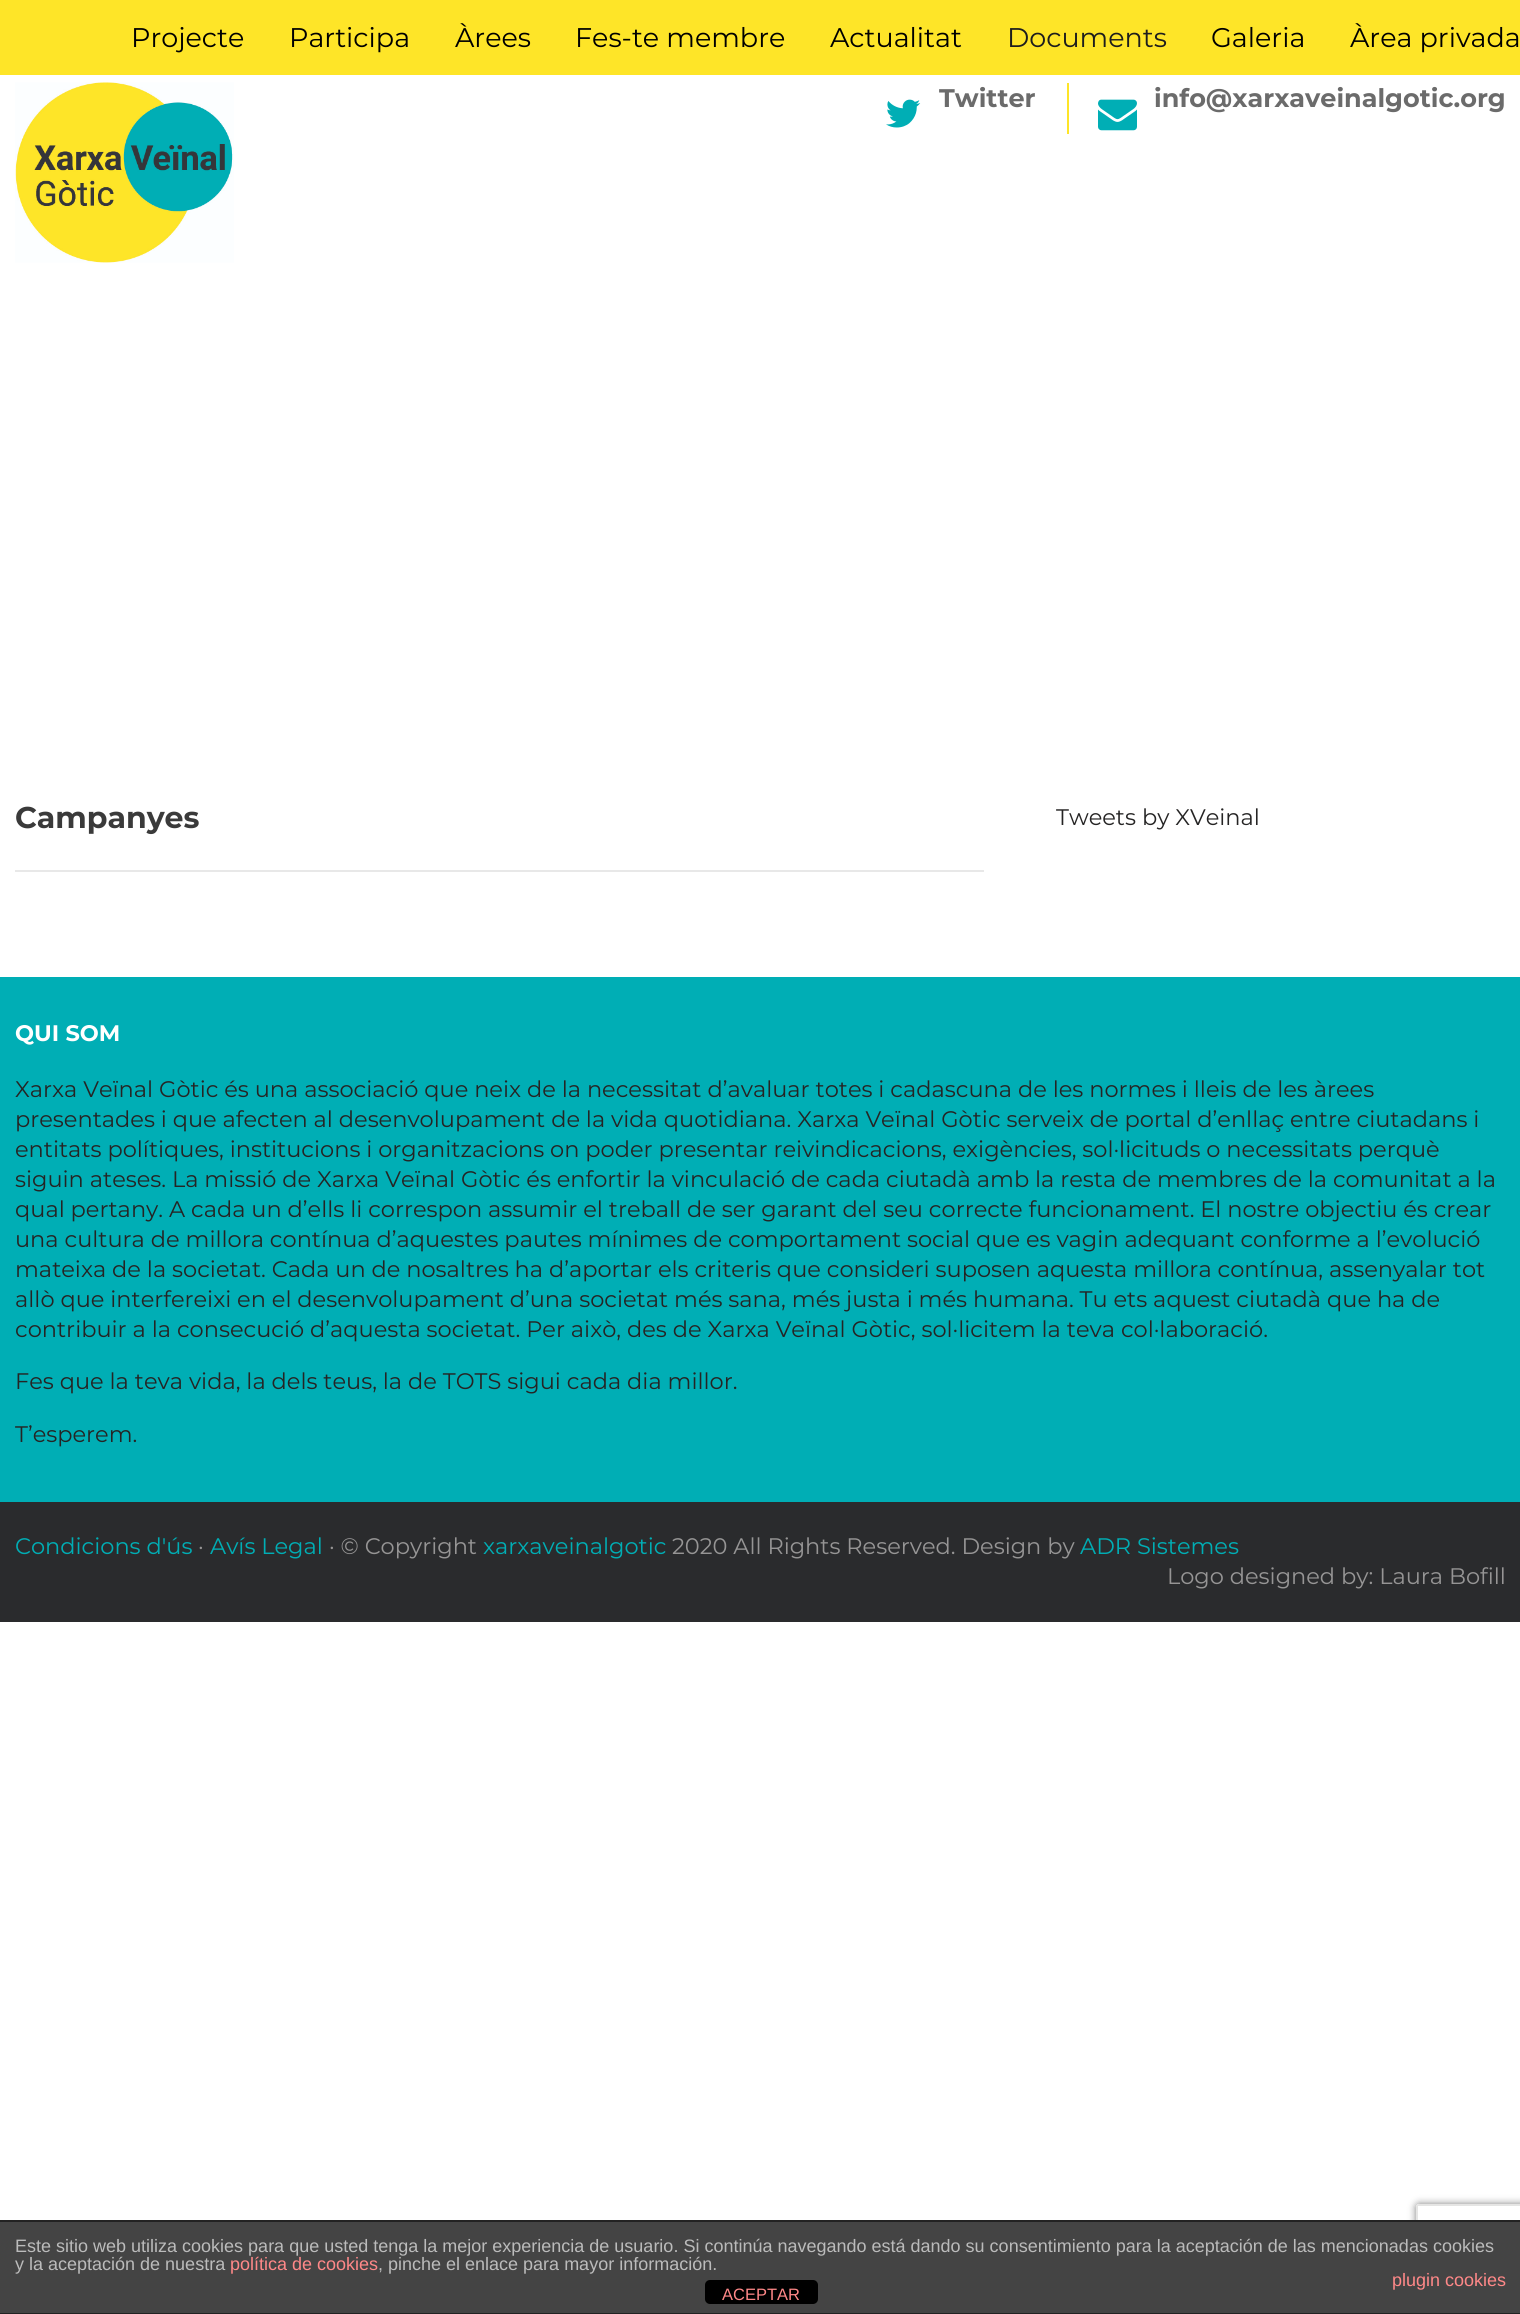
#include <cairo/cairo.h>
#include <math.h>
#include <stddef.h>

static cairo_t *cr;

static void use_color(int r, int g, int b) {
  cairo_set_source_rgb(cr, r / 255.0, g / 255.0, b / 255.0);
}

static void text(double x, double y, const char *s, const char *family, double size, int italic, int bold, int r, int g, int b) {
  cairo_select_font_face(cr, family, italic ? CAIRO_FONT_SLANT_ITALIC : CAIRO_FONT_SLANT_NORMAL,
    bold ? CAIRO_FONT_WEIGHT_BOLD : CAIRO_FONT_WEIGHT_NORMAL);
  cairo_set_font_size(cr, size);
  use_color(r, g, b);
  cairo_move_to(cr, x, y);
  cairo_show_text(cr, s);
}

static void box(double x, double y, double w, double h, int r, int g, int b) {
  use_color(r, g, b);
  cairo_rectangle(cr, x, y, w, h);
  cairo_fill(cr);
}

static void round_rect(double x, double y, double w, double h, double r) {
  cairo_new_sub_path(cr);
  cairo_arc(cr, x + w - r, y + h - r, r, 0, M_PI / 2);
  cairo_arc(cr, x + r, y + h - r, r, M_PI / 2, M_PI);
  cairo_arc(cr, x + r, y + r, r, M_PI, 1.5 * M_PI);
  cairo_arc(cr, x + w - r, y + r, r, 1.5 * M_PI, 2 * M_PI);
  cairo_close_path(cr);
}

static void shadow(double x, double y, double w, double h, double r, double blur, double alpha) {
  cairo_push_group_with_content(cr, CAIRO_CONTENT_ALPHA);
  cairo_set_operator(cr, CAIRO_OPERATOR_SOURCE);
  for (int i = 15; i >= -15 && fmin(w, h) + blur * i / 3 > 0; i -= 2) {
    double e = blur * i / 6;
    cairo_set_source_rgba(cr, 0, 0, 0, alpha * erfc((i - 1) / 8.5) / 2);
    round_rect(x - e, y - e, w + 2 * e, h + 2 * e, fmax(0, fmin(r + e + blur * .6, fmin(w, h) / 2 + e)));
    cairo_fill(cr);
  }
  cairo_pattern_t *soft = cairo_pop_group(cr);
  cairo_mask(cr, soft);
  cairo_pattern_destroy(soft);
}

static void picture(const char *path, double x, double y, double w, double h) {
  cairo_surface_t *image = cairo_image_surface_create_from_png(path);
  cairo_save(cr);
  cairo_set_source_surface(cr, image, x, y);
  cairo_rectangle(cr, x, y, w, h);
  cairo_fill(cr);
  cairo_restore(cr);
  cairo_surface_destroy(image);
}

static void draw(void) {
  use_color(255, 255, 255);
  cairo_paint(cr);
  box(0, 0, 1520, 75, 254, 229, 40);
  picture("img_01.png", 15, 82, 219, 181);
  box(1067, 83, 2, 51, 254, 229, 40);
  picture("img_02.png", 886, 99, 35, 29);
  picture("img_03.png", 1098, 99, 39, 32);
  box(15, 870, 969, 2, 232, 232, 232);
  box(0, 977, 1520, 525, 0, 174, 181);
  box(0, 1502, 1520, 120, 42, 43, 45);
  cairo_save(cr);
  cairo_set_fill_rule(cr, CAIRO_FILL_RULE_EVEN_ODD);
  cairo_new_path(cr);
  cairo_move_to(cr, 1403, 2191);
  cairo_line_to(cr, 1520, 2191);
  cairo_line_to(cr, 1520, 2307);
  cairo_line_to(cr, 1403, 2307);
  cairo_close_path(cr);
  cairo_move_to(cr, 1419, 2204);
  cairo_line_to(cr, 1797, 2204);
  cairo_curve_to(cr, 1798.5, 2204, 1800, 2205.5, 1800, 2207);
  cairo_line_to(cr, 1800, 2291);
  cairo_curve_to(cr, 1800, 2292.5, 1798.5, 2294, 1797, 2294);
  cairo_line_to(cr, 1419, 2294);
  cairo_curve_to(cr, 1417.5, 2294, 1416, 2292.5, 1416, 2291);
  cairo_line_to(cr, 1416, 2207);
  cairo_curve_to(cr, 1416, 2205.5, 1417.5, 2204, 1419, 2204);
  cairo_close_path(cr);
  cairo_clip(cr);
  use_color(128, 128, 128);
  shadow(1416, 2204, 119, 90, 3, 4, 1);
  cairo_restore(cr);
  use_color(229, 229, 228);
  cairo_set_fill_rule(cr, CAIRO_FILL_RULE_EVEN_ODD);
  cairo_new_path(cr);
  cairo_move_to(cr, 1419, 2204);
  cairo_curve_to(cr, 1417, 2204, 1416, 2205, 1416, 2207);
  cairo_line_to(cr, 1416, 2291);
  cairo_curve_to(cr, 1416, 2293, 1417, 2294, 1419, 2294);
  cairo_line_to(cr, 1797, 2294);
  cairo_curve_to(cr, 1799, 2294, 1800, 2293, 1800, 2291);
  cairo_line_to(cr, 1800, 2207);
  cairo_curve_to(cr, 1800, 2205, 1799, 2204, 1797, 2204);
  cairo_close_path(cr);
  cairo_move_to(cr, 1418, 2206);
  cairo_line_to(cr, 1418, 2292);
  cairo_line_to(cr, 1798, 2292);
  cairo_line_to(cr, 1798, 2206);
  cairo_close_path(cr);
  cairo_fill(cr);
  box(0, 2222, 1520, 91, 68, 68, 68);
  box(0, 2220, 1520, 2, 34, 34, 34);
  box(0, 2313, 1520, 1, 34, 34, 34);
  use_color(0, 0, 0);
  round_rect(705, 2280, 113, 24, 5);
  cairo_fill(cr);
  text(131, 47, "Projecte", "Montserrat Thin", 27, 0, 0, 0, 0, 0);
  text(289, 47, "Participa", "Montserrat Thin", 27, 0, 0, 0, 0, 0);
  text(455, 47, "Àrees", "Montserrat Thin", 27, 0, 0, 0, 0, 0);
  text(575, 47, "Fes-te membre", "Montserrat Thin", 27, 0, 0, 0, 0, 0);
  text(830, 47, "Actualitat", "Montserrat Thin", 27, 0, 0, 0, 0, 0);
  text(1007, 47, "Documents", "Montserrat Thin", 27, 0, 0, 29, 29, 29);
  text(1211, 47, "Galeria", "Montserrat Thin", 27, 0, 0, 0, 0, 0);
  text(1350, 47, "Àrea privada", "Montserrat Thin", 27, 0, 0, 0, 0, 0);
  text(939, 107, "Twitter", "Montserrat", 25.5, 0, 1, 107, 107, 107);
  text(1154, 107, "info@xarxaveinalgotic.org", "Montserrat", 25.5, 0, 1, 107, 107, 107);
  text(15, 828, "Campanyes", "Montserrat", 30, 0, 1, 58, 58, 58);
  text(1056, 825, "Tweets by XVeinal", "Montserrat Thin", 22.5, 0, 0, 37, 36, 36);
  text(15, 1041, "QUI SOM", "Montserrat", 22.5, 0, 1, 255, 255, 255);
  text(15, 1097, "Xarxa Veïnal Gòtic és una associació que neix de la necessitat d’avaluar totes i cadascuna de les normes i lleis de les àrees", "Montserrat Thin", 22.5, 0, 0, 37, 36, 36);
  text(15, 1127, "presentades i que afecten al desenvolupament de la vida quotidiana. Xarxa Veïnal Gòtic serveix de portal d’enllaç entre ciutadans i", "Montserrat Thin", 22.5, 0, 0, 37, 36, 36);
  text(15, 1157, "entitats polítiques, institucions i organitzacions on poder presentar reivindicacions, exigències, sol·licituds o necessitats perquè", "Montserrat Thin", 22.5, 0, 0, 37, 36, 36);
  text(15, 1187, "siguin ateses. La missió de Xarxa Veïnal Gòtic és enfortir la vinculació de cada ciutadà amb la resta de membres de la comunitat a la", "Montserrat Thin", 22.5, 0, 0, 37, 36, 36);
  text(15, 1217, "qual pertany. A cada un d’ells li correspon assumir el treball de ser garant del seu correcte funcionament. El nostre objectiu és crear", "Montserrat Thin", 22.5, 0, 0, 37, 36, 36);
  text(15, 1247, "una cultura de millora contínua d’aquestes pautes mínimes de comportament social que es vagin adequant conforme a l’evolució", "Montserrat Thin", 22.5, 0, 0, 37, 36, 36);
  text(15, 1277, "mateixa de la societat. Cada un de nosaltres ha d’aportar els criteris que consideri suposen aquesta millora contínua, assenyalar tot", "Montserrat Thin", 22.5, 0, 0, 37, 36, 36);
  text(15, 1307, "allò que interfereixi en el desenvolupament d’una societat més sana, més justa i més humana. Tu ets aquest ciutadà que ha de", "Montserrat Thin", 22.5, 0, 0, 37, 36, 36);
  text(15, 1337, "contribuir a la consecució d’aquesta societat. Per això, des de Xarxa Veïnal Gòtic, sol·licitem la teva col·laboració.", "Montserrat Thin", 22.5, 0, 0, 37, 36, 36);
  text(15, 1389, "Fes que la teva vida, la dels teus, la de TOTS sigui cada dia millor.", "Montserrat Thin", 22.5, 0, 0, 37, 36, 36);
  text(15, 1442, "T’esperem.", "Montserrat Thin", 22.5, 0, 0, 37, 36, 36);
  text(15, 1554, "Condicions d'ús", "Montserrat Thin", 22.5, 0, 0, 0, 174, 181);
  text(198, 1554, "·", "Montserrat Thin", 22.5, 0, 0, 150, 149, 149);
  text(210, 1554, "Avís Legal", "Montserrat Thin", 22.5, 0, 0, 0, 174, 181);
  text(329, 1554, "· © Copyright", "Montserrat Thin", 22.5, 0, 0, 150, 149, 149);
  text(483, 1554, "xarxaveinalgotic", "Montserrat Thin", 22.5, 0, 0, 0, 174, 181);
  text(672, 1554, "2020 All Rights Reserved. Design by", "Montserrat Thin", 22.5, 0, 0, 150, 149, 149);
  text(1080, 1554, "ADR Sistemes", "Montserrat Thin", 22.5, 0, 0, 0, 174, 181);
  text(1167, 1584, "Logo designed by: Laura Bofill", "Montserrat Thin", 22.5, 0, 0, 150, 149, 149);
  text(15, 2252, "Este sitio web utiliza cookies para que usted tenga la mejor experiencia de usuario. Si continúa navegando está dando su consentimiento para la aceptación de las mencionadas cookies", "Liberation Sans", 18, 0, 0, 187, 187, 187);
  text(15, 2270, "y la aceptación de nuestra", "Liberation Sans", 18, 0, 0, 187, 187, 187);
  text(230, 2270, "política de cookies", "Liberation Sans", 18, 0, 0, 255, 136, 136);
  text(378, 2270, ", pinche el enlace para mayor información.", "Liberation Sans", 18, 0, 0, 187, 187, 187);
  text(1392, 2286, "plugin cookies", "Liberation Sans", 18, 0, 0, 255, 136, 136);
  text(722, 2300, "ACEPTAR", "Liberation Sans", 16.5, 0, 0, 255, 136, 136);
}

int main(void) {
  cairo_surface_t *surface = cairo_image_surface_create(CAIRO_FORMAT_RGB24, 1520, 2314);
  cr = cairo_create(surface);
  cairo_font_options_t *options = cairo_font_options_create();
  cairo_font_options_set_hint_metrics(options, CAIRO_HINT_METRICS_OFF);
  cairo_font_options_set_hint_style(options, CAIRO_HINT_STYLE_NONE);
  cairo_set_font_options(cr, options);
  cairo_set_miter_limit(cr, 4);
  draw();
  cairo_surface_write_to_png(surface, "out.png");
  cairo_font_options_destroy(options);
  cairo_destroy(cr);
  cairo_surface_destroy(surface);
  return 0;
}
